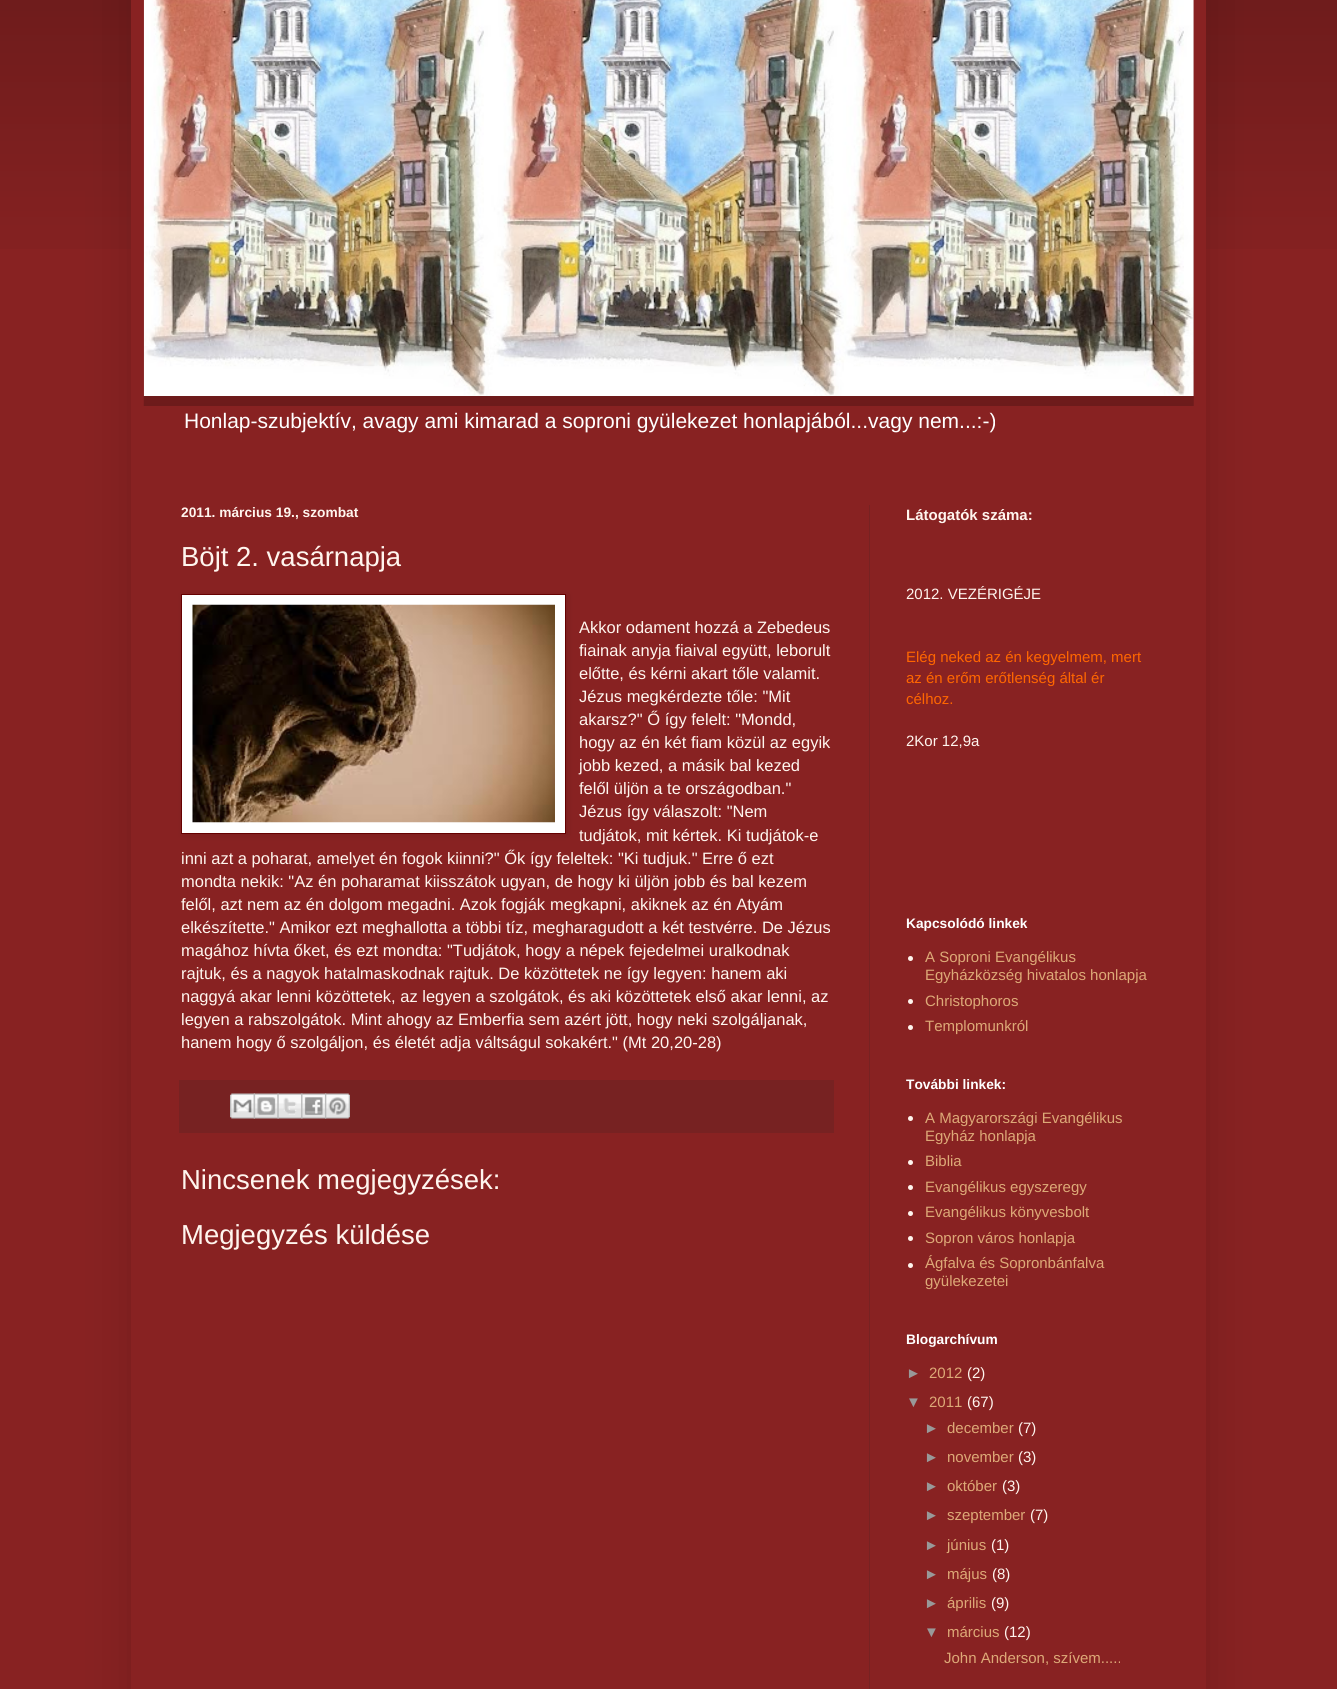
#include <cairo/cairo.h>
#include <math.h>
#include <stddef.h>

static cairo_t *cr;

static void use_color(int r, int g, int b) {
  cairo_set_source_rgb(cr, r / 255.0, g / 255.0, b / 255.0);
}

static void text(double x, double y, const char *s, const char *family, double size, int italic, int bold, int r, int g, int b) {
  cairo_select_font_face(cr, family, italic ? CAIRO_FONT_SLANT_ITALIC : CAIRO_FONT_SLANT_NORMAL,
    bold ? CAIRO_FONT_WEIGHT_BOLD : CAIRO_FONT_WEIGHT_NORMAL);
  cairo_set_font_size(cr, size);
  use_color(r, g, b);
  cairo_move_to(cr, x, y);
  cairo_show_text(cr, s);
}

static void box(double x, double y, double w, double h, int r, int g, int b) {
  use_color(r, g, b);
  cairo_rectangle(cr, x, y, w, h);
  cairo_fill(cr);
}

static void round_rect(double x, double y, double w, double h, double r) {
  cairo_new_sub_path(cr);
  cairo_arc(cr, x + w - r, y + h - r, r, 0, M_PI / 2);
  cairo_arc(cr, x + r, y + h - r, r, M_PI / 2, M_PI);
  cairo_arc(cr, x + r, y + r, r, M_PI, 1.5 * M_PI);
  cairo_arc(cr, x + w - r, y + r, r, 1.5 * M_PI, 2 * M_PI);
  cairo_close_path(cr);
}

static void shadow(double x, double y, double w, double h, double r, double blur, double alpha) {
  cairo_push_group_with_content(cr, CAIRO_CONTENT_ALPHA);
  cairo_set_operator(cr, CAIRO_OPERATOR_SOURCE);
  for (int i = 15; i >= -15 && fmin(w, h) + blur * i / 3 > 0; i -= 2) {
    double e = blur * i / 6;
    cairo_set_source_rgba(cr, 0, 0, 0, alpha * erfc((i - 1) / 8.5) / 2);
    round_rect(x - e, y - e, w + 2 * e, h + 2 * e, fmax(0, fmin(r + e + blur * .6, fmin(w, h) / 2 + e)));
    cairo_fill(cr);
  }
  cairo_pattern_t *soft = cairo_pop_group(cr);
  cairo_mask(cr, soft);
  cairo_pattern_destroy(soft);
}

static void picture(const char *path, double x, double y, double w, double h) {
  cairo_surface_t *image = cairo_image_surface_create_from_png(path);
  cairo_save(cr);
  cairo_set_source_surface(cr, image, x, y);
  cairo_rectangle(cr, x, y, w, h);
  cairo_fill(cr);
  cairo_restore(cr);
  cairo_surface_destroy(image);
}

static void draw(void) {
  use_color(136, 34, 34);
  cairo_paint(cr);
  picture("img_01.png", 0, 0, 1337, 249);
  use_color(0, 0, 0);
  shadow(131, -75, 1075, 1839, 0, 25, 0.15);
  box(131, 0, 1075, 1689, 136, 34, 34);
  picture("img_02.png", 143, 0, 1051, 406);
  picture("img_03.png", 143, 0, 1051, 396);
  box(869, 505, 1, 1184, 119, 34, 34);
  use_color(0, 0, 0);
  shadow(183, 595, 385, 240, 0, 3, 0.1);
  use_color(255, 255, 255);
  cairo_rectangle(cr, 181.5, 594.5, 384, 239);
  cairo_fill_preserve(cr);
  use_color(102, 0, 0);
  cairo_set_line_width(cr, 1);
  cairo_stroke(cr);
  picture("img_04.png", 192, 604, 363, 219);
  box(179, 1080, 655, 53, 119, 34, 34);
  picture("img_05.png", 230, 1093, 25, 26);
  picture("img_06.png", 253, 1093, 26, 26);
  picture("img_07.png", 277, 1093, 26, 26);
  picture("img_08.png", 301, 1093, 26, 26);
  picture("img_09.png", 325, 1093, 25, 26);
  use_color(255, 245, 238);
  cairo_arc(cr, 910.5, 958.5, 2.5, 0, 2 * M_PI);
  cairo_fill(cr);
  cairo_arc(cr, 910.5, 1001.5, 2.5, 0, 2 * M_PI);
  cairo_fill(cr);
  cairo_arc(cr, 910.5, 1027.5, 2.5, 0, 2 * M_PI);
  cairo_fill(cr);
  cairo_arc(cr, 910.5, 1118.5, 2.5, 0, 2 * M_PI);
  cairo_fill(cr);
  cairo_arc(cr, 910.5, 1162.5, 2.5, 0, 2 * M_PI);
  cairo_fill(cr);
  cairo_arc(cr, 910.5, 1187.5, 2.5, 0, 2 * M_PI);
  cairo_fill(cr);
  cairo_arc(cr, 910.5, 1213.5, 2.5, 0, 2 * M_PI);
  cairo_fill(cr);
  cairo_arc(cr, 910.5, 1238.5, 2.5, 0, 2 * M_PI);
  cairo_fill(cr);
  cairo_arc(cr, 910.5, 1265.5, 2.5, 0, 2 * M_PI);
  cairo_fill(cr);
  text(184, 428, "Honlap-szubjektív, avagy ami kimarad a soproni gyülekezet honlapjából...vagy nem...:-)", "Liberation Sans", 21, 0, 0, 255, 255, 255);
  text(181, 517, "2011. március 19., szombat", "Liberation Sans", 13.75, 0, 1, 255, 245, 238);
  text(181, 566, "Böjt 2. vasárnapja", "Liberation Sans", 27.5, 0, 0, 255, 245, 238);
  text(579, 633, "Akkor odament hozzá a Zebedeus", "Liberation Sans", 16.5, 0, 0, 255, 245, 238);
  text(579, 656, "fiainak anyja fiaival együtt, leborult", "Liberation Sans", 16.5, 0, 0, 255, 245, 238);
  text(579, 679, "előtte, és kérni akart tőle valamit.", "Liberation Sans", 16.5, 0, 0, 255, 245, 238);
  text(579, 702, "Jézus megkérdezte tőle: \"Mit", "Liberation Sans", 16.5, 0, 0, 255, 245, 238);
  text(579, 725, "akarsz?\" Ő így felelt: \"Mondd,", "Liberation Sans", 16.5, 0, 0, 255, 245, 238);
  text(579, 748, "hogy az én két fiam közül az egyik", "Liberation Sans", 16.5, 0, 0, 255, 245, 238);
  text(579, 771, "jobb kezed, a másik bal kezed", "Liberation Sans", 16.5, 0, 0, 255, 245, 238);
  text(579, 794, "felől üljön a te országodban.\"", "Liberation Sans", 16.5, 0, 0, 255, 245, 238);
  text(579, 817, "Jézus így válaszolt: \"Nem", "Liberation Sans", 16.5, 0, 0, 255, 245, 238);
  text(579, 841, "tudjátok, mit kértek. Ki tudjátok-e", "Liberation Sans", 16.5, 0, 0, 255, 245, 238);
  text(181, 864, "inni azt a poharat, amelyet én fogok kiinni?\" Ők így feleltek: \"Ki tudjuk.\" Erre ő ezt", "Liberation Sans", 16.5, 0, 0, 255, 245, 238);
  text(181, 887, "mondta nekik: \"Az én poharamat kiisszátok ugyan, de hogy ki üljön jobb és bal kezem", "Liberation Sans", 16.5, 0, 0, 255, 245, 238);
  text(181, 910, "felől, azt nem az én dolgom megadni. Azok fogják", "Liberation Sans", 16.5, 0, 0, 255, 245, 238);
  text(550, 910, "megkapni, akiknek az én Atyám", "Liberation Sans", 16.5, 0, 0, 255, 245, 238);
  text(181, 933, "elkészítette.\" Amikor ezt meghallotta a többi tíz, megharagudott a két testvérre. De Jézus", "Liberation Sans", 16.5, 0, 0, 255, 245, 238);
  text(181, 956, "magához hívta őket, és ezt mondta: \"Tudjátok, hogy a népek fejedelmei uralkodnak", "Liberation Sans", 16.5, 0, 0, 255, 245, 238);
  text(181, 979, "rajtuk, és a nagyok hatalmaskodnak rajtuk. De közöttetek ne így legyen: hanem aki", "Liberation Sans", 16.5, 0, 0, 255, 245, 238);
  text(181, 1002, "naggyá akar lenni közöttetek, az legyen a szolgátok, és aki közöttetek első akar lenni, az", "Liberation Sans", 16.5, 0, 0, 255, 245, 238);
  text(181, 1025, "legyen a rabszolgátok. Mint ahogy az Emberfia sem azért jött, hogy neki szolgáljanak,", "Liberation Sans", 16.5, 0, 0, 255, 245, 238);
  text(181, 1048, "hanem hogy ő szolgáljon, és életét adja váltságul sokakért.\" (Mt 20,20-28)", "Liberation Sans", 16.5, 0, 0, 255, 245, 238);
  text(181, 1189, "Nincsenek megjegyzések:", "Liberation Sans", 27.5, 0, 0, 255, 245, 238);
  text(181, 1244, "Megjegyzés küldése", "Liberation Sans", 27.5, 0, 0, 255, 245, 238);
  text(906, 520, "Látogatók száma:", "Liberation Sans", 15, 0, 1, 255, 245, 238);
  text(906, 599, "2012. VEZÉRIGÉJE", "Liberation Sans", 15, 0, 0, 255, 245, 238);
  text(906, 662, "Elég neked az én kegyelmem, mert", "Liberation Sans", 15, 0, 0, 255, 102, 0);
  text(906, 683, "az én erőm erőtlenség által ér", "Liberation Sans", 15, 0, 0, 255, 102, 0);
  text(906, 704, "célhoz.", "Liberation Sans", 15, 0, 0, 255, 102, 0);
  text(906, 746, "2Kor 12,9a", "Liberation Sans", 15, 0, 0, 255, 245, 238);
  text(906, 928, "Kapcsolódó linkek", "Liberation Sans", 13.75, 0, 1, 255, 255, 255);
  text(925, 962, "A Soproni Evangélikus", "Liberation Sans", 15, 0, 0, 221, 169, 119);
  text(925, 980, "Egyházközség hivatalos honlapja", "Liberation Sans", 15, 0, 0, 221, 169, 119);
  text(925, 1006, "Christophoros", "Liberation Sans", 15, 0, 0, 221, 169, 119);
  text(925, 1031, "Templomunkról", "Liberation Sans", 15, 0, 0, 221, 169, 119);
  text(906, 1089, "További linkek:", "Liberation Sans", 13.75, 0, 1, 255, 255, 255);
  text(925, 1123, "A Magyarországi Evangélikus", "Liberation Sans", 15, 0, 0, 221, 169, 119);
  text(925, 1141, "Egyház honlapja", "Liberation Sans", 15, 0, 0, 221, 169, 119);
  text(925, 1166, "Biblia", "Liberation Sans", 15, 0, 0, 221, 169, 119);
  text(925, 1192, "Evangélikus egyszeregy", "Liberation Sans", 15, 0, 0, 221, 169, 119);
  text(925, 1217, "Evangélikus könyvesbolt", "Liberation Sans", 15, 0, 0, 221, 169, 119);
  text(925, 1243, "Sopron város honlapja", "Liberation Sans", 15, 0, 0, 221, 169, 119);
  text(925, 1268, "Ágfalva és Sopronbánfalva", "Liberation Sans", 15, 0, 0, 221, 169, 119);
  text(925, 1286, "gyülekezetei", "Liberation Sans", 15, 0, 0, 221, 169, 119);
  text(906, 1344, "Blogarchívum", "Liberation Sans", 13.75, 0, 1, 255, 255, 255);
  text(906, 1378, "►", "Liberation Sans", 15, 0, 0, 153, 153, 153);
  text(929, 1378, "2012", "Liberation Sans", 15, 0, 0, 221, 169, 119);
  text(967, 1378, "(2)", "Liberation Sans", 15, 0, 0, 255, 245, 238);
  text(906, 1407, "▼", "Liberation Sans", 15, 0, 0, 153, 153, 153);
  text(929, 1407, "2011", "Liberation Sans", 15, 0, 0, 221, 169, 119);
  text(967, 1407, "(67)", "Liberation Sans", 15, 0, 0, 255, 245, 238);
  text(924, 1433, "►", "Liberation Sans", 15, 0, 0, 153, 153, 153);
  text(947, 1433, "december", "Liberation Sans", 15, 0, 0, 221, 169, 119);
  text(1018, 1433, "(7)", "Liberation Sans", 15, 0, 0, 255, 245, 238);
  text(924, 1462, "►", "Liberation Sans", 15, 0, 0, 153, 153, 153);
  text(947, 1462, "november", "Liberation Sans", 15, 0, 0, 221, 169, 119);
  text(1018, 1462, "(3)", "Liberation Sans", 15, 0, 0, 255, 245, 238);
  text(924, 1491, "►", "Liberation Sans", 15, 0, 0, 153, 153, 153);
  text(947, 1491, "október", "Liberation Sans", 15, 0, 0, 221, 169, 119);
  text(1002, 1491, "(3)", "Liberation Sans", 15, 0, 0, 255, 245, 238);
  text(924, 1520, "►", "Liberation Sans", 15, 0, 0, 153, 153, 153);
  text(947, 1520, "szeptember", "Liberation Sans", 15, 0, 0, 221, 169, 119);
  text(1030, 1520, "(7)", "Liberation Sans", 15, 0, 0, 255, 245, 238);
  text(924, 1550, "►", "Liberation Sans", 15, 0, 0, 153, 153, 153);
  text(947, 1550, "június", "Liberation Sans", 15, 0, 0, 221, 169, 119);
  text(991, 1550, "(1)", "Liberation Sans", 15, 0, 0, 255, 245, 238);
  text(924, 1579, "►", "Liberation Sans", 15, 0, 0, 153, 153, 153);
  text(947, 1579, "május", "Liberation Sans", 15, 0, 0, 221, 169, 119);
  text(992, 1579, "(8)", "Liberation Sans", 15, 0, 0, 255, 245, 238);
  text(924, 1608, "►", "Liberation Sans", 15, 0, 0, 153, 153, 153);
  text(947, 1608, "április", "Liberation Sans", 15, 0, 0, 221, 169, 119);
  text(991, 1608, "(9)", "Liberation Sans", 15, 0, 0, 255, 245, 238);
  text(924, 1637, "▼", "Liberation Sans", 15, 0, 0, 153, 153, 153);
  text(947, 1637, "március", "Liberation Sans", 15, 0, 0, 221, 169, 119);
  text(1004, 1637, "(12)", "Liberation Sans", 15, 0, 0, 255, 245, 238);
  text(944, 1663, "John Anderson, szívem.....", "Liberation Sans", 15, 0, 0, 221, 169, 119);
}

int main(void) {
  cairo_surface_t *surface = cairo_image_surface_create(CAIRO_FORMAT_RGB24, 1337, 1689);
  cr = cairo_create(surface);
  cairo_font_options_t *options = cairo_font_options_create();
  cairo_font_options_set_hint_metrics(options, CAIRO_HINT_METRICS_OFF);
  cairo_font_options_set_hint_style(options, CAIRO_HINT_STYLE_NONE);
  cairo_set_font_options(cr, options);
  cairo_set_miter_limit(cr, 4);
  draw();
  cairo_surface_write_to_png(surface, "out.png");
  cairo_font_options_destroy(options);
  cairo_destroy(cr);
  cairo_surface_destroy(surface);
  return 0;
}
